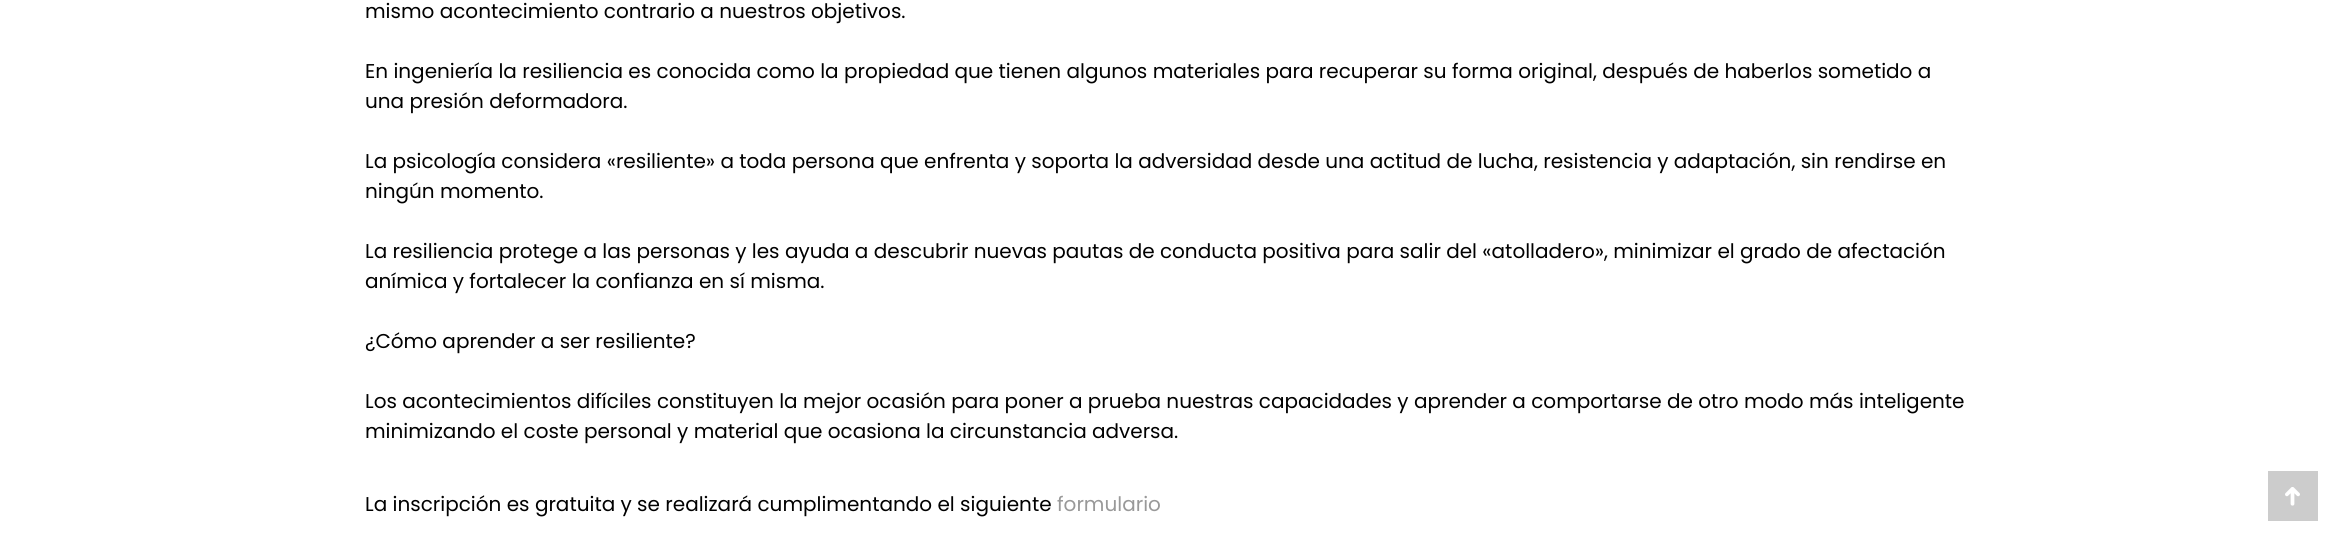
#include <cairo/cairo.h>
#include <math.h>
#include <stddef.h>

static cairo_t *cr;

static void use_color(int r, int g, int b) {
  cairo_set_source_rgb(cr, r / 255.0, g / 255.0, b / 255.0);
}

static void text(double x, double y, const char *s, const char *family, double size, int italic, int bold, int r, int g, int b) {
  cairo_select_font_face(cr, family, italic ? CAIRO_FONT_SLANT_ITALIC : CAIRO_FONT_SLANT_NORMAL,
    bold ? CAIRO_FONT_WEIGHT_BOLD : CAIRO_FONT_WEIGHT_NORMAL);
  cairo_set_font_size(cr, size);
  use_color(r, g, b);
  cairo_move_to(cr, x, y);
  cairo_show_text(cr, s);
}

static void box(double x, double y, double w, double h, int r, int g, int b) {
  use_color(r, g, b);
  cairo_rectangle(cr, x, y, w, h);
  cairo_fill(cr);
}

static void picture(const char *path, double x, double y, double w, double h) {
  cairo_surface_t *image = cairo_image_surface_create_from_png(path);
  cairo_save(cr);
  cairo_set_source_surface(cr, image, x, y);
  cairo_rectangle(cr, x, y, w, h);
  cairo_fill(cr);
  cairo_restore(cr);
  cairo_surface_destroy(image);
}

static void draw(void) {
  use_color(255, 255, 255);
  cairo_paint(cr);
  box(2268, 471, 50, 50, 204, 204, 204);
  picture("img_01.png", 2285, 487, 15, 19);
  text(365, 18, "mismo acontecimiento contrario a nuestros objetivos.", "Poppins", 20, 0, 0, 0, 0, 0);
  text(365, 78, "En ingeniería la resiliencia es conocida como la propiedad que tienen algunos materiales para recuperar su forma original, después de haberlos sometido a", "Poppins", 20, 0, 0, 0, 0, 0);
  text(365, 108, "una presión deformadora.", "Poppins", 20, 0, 0, 0, 0, 0);
  text(365, 168, "La psicología considera «resiliente» a toda persona que enfrenta y soporta la adversidad desde una actitud de lucha, resistencia y adaptación, sin rendirse en", "Poppins", 20, 0, 0, 0, 0, 0);
  text(365, 198, "ningún momento.", "Poppins", 20, 0, 0, 0, 0, 0);
  text(365, 258, "La resiliencia protege a las personas y les ayuda a descubrir nuevas pautas de conducta positiva para salir del «atolladero», minimizar el grado de afectación", "Poppins", 20, 0, 0, 0, 0, 0);
  text(365, 288, "anímica y fortalecer la confianza en sí misma.", "Poppins", 20, 0, 0, 0, 0, 0);
  text(365, 348, "¿Cómo aprender a ser resiliente?", "Poppins", 20, 0, 0, 0, 0, 0);
  text(365, 408, "Los acontecimientos difíciles constituyen la mejor ocasión para poner a prueba nuestras capacidades y aprender a comportarse de otro modo más inteligente", "Poppins", 20, 0, 0, 0, 0, 0);
  text(365, 438, "minimizando el coste personal y material que ocasiona la circunstancia adversa.", "Poppins", 20, 0, 0, 0, 0, 0);
  text(365, 511, "La inscripción es gratuita y se realizará cumplimentando el siguiente", "Poppins", 20, 0, 0, 0, 0, 0);
  text(1057, 511, "formulario", "Poppins", 20, 0, 0, 153, 153, 153);
}

int main(void) {
  cairo_surface_t *surface = cairo_image_surface_create(CAIRO_FORMAT_RGB24, 2330, 533);
  cr = cairo_create(surface);
  cairo_font_options_t *options = cairo_font_options_create();
  cairo_font_options_set_hint_metrics(options, CAIRO_HINT_METRICS_OFF);
  cairo_font_options_set_hint_style(options, CAIRO_HINT_STYLE_NONE);
  cairo_set_font_options(cr, options);
  cairo_set_miter_limit(cr, 4);
  draw();
  cairo_surface_write_to_png(surface, "out.png");
  cairo_font_options_destroy(options);
  cairo_destroy(cr);
  cairo_surface_destroy(surface);
  return 0;
}
